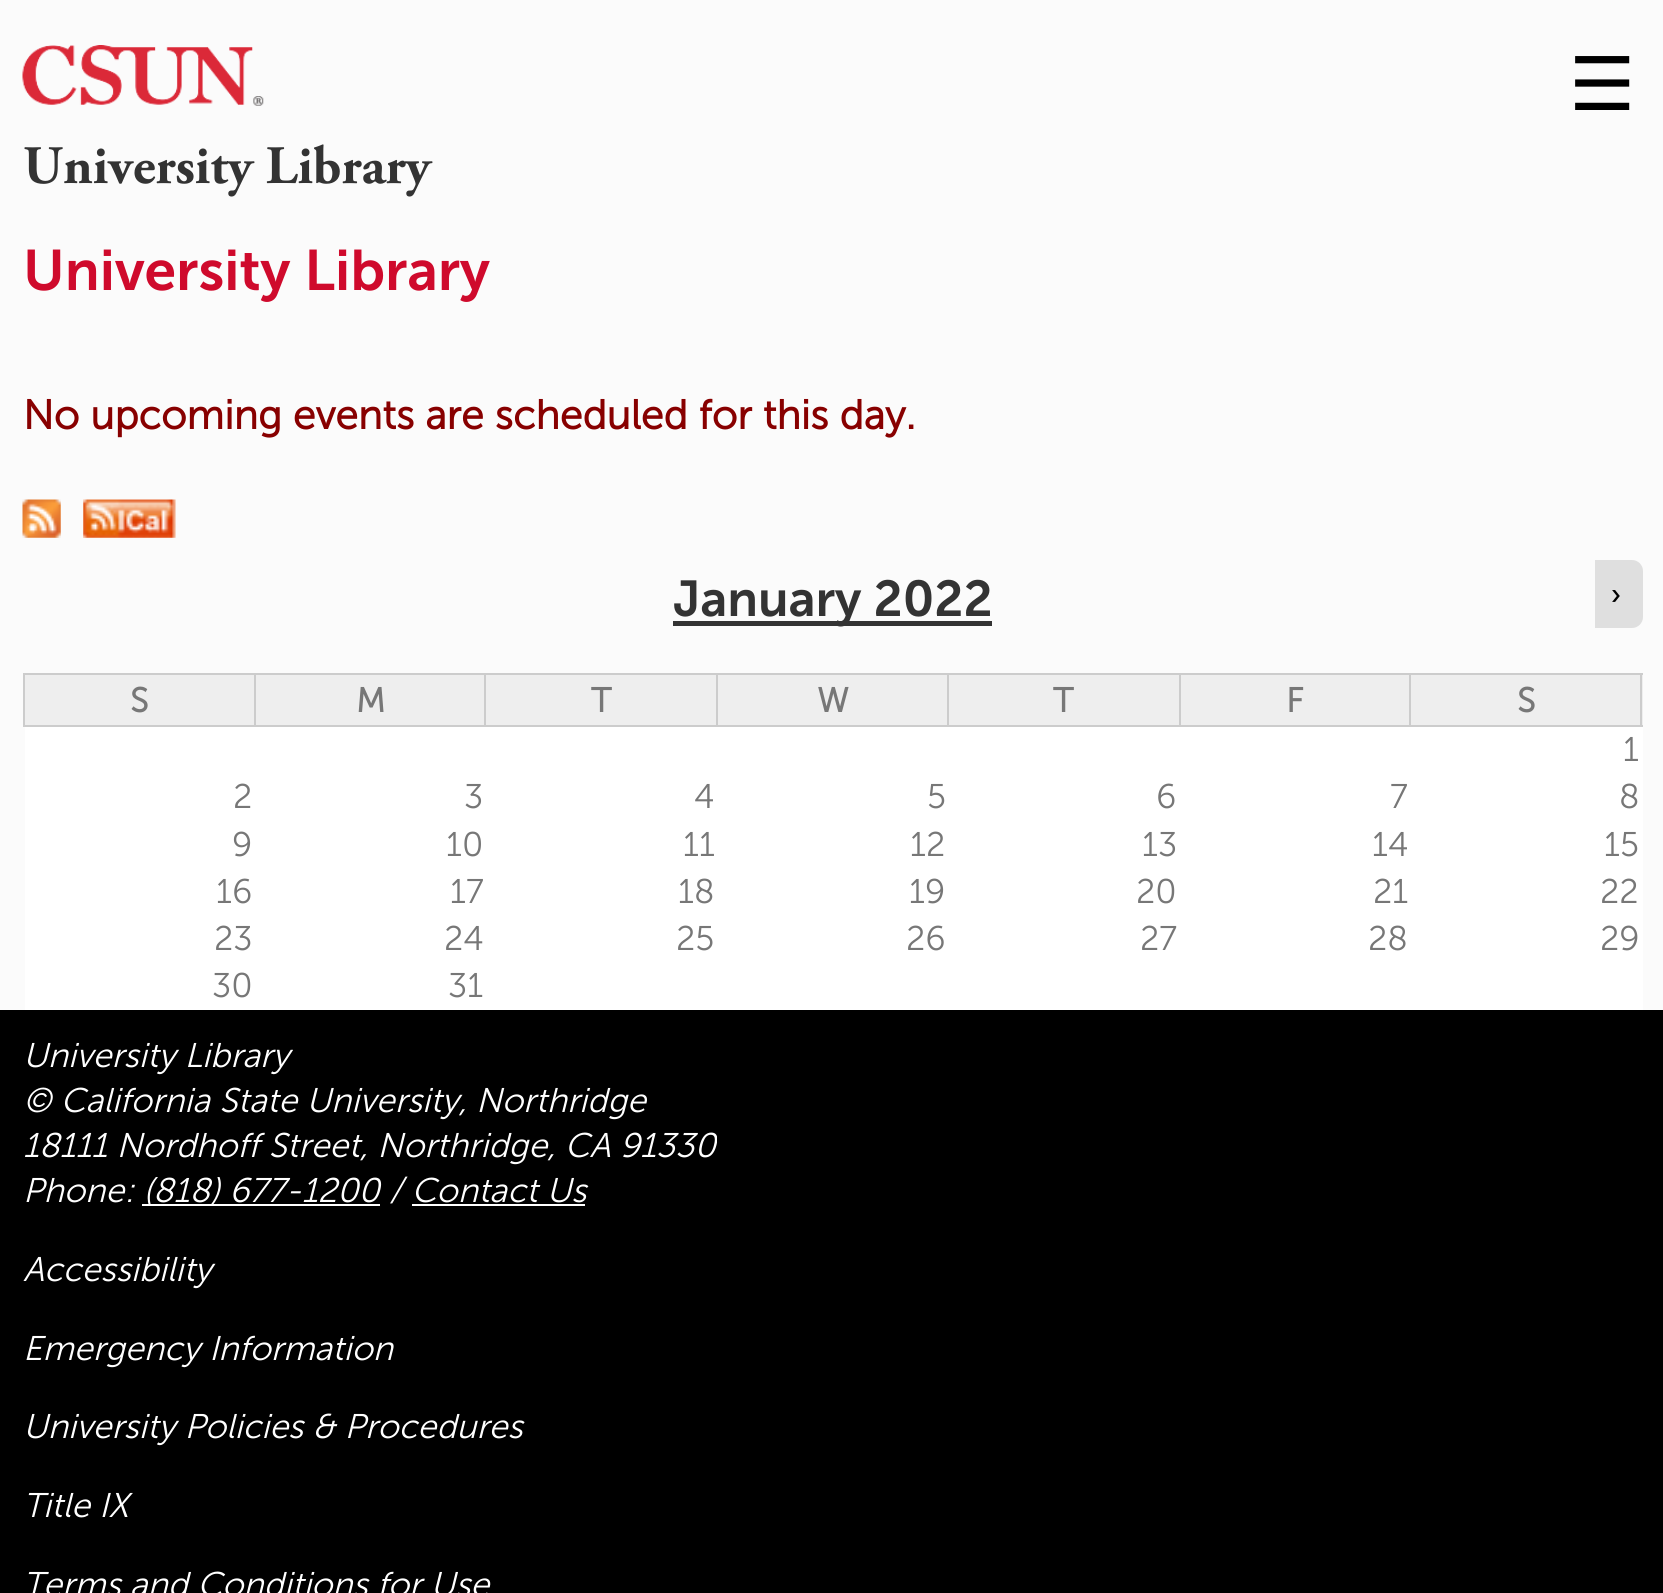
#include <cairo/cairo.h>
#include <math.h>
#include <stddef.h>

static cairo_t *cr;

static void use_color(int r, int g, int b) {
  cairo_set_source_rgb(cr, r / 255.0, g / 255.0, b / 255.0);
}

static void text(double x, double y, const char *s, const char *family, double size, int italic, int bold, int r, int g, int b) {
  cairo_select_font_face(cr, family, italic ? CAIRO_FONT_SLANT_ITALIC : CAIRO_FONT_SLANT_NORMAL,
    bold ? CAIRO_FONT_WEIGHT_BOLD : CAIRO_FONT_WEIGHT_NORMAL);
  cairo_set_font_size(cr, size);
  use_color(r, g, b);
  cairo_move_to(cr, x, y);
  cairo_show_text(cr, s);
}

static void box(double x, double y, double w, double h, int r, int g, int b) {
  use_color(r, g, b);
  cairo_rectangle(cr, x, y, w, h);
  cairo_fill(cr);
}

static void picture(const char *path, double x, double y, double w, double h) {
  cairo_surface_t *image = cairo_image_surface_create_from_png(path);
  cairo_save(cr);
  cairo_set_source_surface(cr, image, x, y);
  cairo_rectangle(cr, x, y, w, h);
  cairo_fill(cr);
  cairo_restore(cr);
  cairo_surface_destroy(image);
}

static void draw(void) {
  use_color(251, 251, 251);
  cairo_paint(cr);
  picture("img_01.png", 22, 45, 242, 61);
  picture("img_02.png", 22, 499, 39, 39);
  picture("img_03.png", 83, 499, 93, 39);
  box(673, 621, 319, 5, 51, 51, 51);
  use_color(223, 223, 223);
  cairo_new_path(cr);
  cairo_move_to(cr, 1595, 560);
  cairo_line_to(cr, 1632, 560);
  cairo_curve_to(cr, 1638, 560, 1643, 565, 1643, 571);
  cairo_line_to(cr, 1643, 617);
  cairo_curve_to(cr, 1643, 623, 1638, 628, 1632, 628);
  cairo_line_to(cr, 1595, 628);
  cairo_close_path(cr);
  cairo_fill(cr);
  box(25, 675, 229, 50, 238, 238, 238);
  box(1409, 673, 234, 2, 204, 204, 204);
  box(1411, 675, 232, 50, 238, 238, 238);
  box(1640, 673, 2, 54, 204, 204, 204);
  box(1409, 725, 234, 2, 204, 204, 204);
  box(1409, 673, 2, 54, 204, 204, 204);
  box(1179, 673, 232, 2, 204, 204, 204);
  box(1179, 725, 232, 2, 204, 204, 204);
  box(1179, 673, 2, 54, 204, 204, 204);
  box(947, 673, 234, 2, 204, 204, 204);
  box(947, 725, 234, 2, 204, 204, 204);
  box(947, 673, 2, 54, 204, 204, 204);
  box(716, 673, 234, 2, 204, 204, 204);
  box(716, 725, 234, 2, 204, 204, 204);
  box(716, 673, 2, 54, 204, 204, 204);
  box(484, 673, 234, 2, 204, 204, 204);
  box(484, 725, 234, 2, 204, 204, 204);
  box(484, 673, 2, 54, 204, 204, 204);
  box(254, 673, 232, 2, 204, 204, 204);
  box(254, 725, 232, 2, 204, 204, 204);
  box(254, 673, 2, 54, 204, 204, 204);
  box(23, 673, 234, 2, 204, 204, 204);
  box(23, 725, 234, 2, 204, 204, 204);
  box(23, 673, 2, 54, 204, 204, 204);
  box(256, 675, 228, 50, 238, 238, 238);
  box(486, 675, 230, 50, 238, 238, 238);
  box(718, 675, 229, 50, 238, 238, 238);
  box(949, 675, 230, 50, 238, 238, 238);
  box(1181, 675, 228, 50, 238, 238, 238);
  box(25, 727, 1618, 283, 255, 255, 255);
  box(0, 1010, 1663, 583, 0, 0, 0);
  box(142, 1204, 238, 2, 255, 255, 255);
  box(412, 1204, 173, 2, 255, 255, 255);
  text(1569, 110, "☰", "DejaVu Sans", 74, 0, 0, 0, 0, 0);
  text(23, 183, "University Library", "Adobe Garamond", 54, 0, 1, 51, 51, 51);
  text(23, 290, "University Library", "Museo Sans SemiBold", 57, 0, 0, 207, 10, 44);
  text(23, 429, "No upcoming events are scheduled for this day.", "Museo Sans", 41, 0, 1, 136, 0, 0);
  text(673, 616, "January 2022", "Museo Sans SemiBold", 50.25, 0, 0, 51, 51, 51);
  text(1611, 604, "›", "Museo Sans", 27, 0, 1, 0, 0, 0);
  text(130, 712, "S", "Museo Sans", 34.2, 0, 1, 119, 119, 119);
  text(356, 712, "M", "Museo Sans", 34.2, 0, 1, 119, 119, 119);
  text(591, 712, "T", "Museo Sans", 34.2, 0, 1, 119, 119, 119);
  text(817, 712, "W", "Museo Sans", 34.2, 0, 1, 119, 119, 119);
  text(1053, 712, "T", "Museo Sans", 34.2, 0, 1, 119, 119, 119);
  text(1286, 712, "F", "Museo Sans", 34.2, 0, 1, 119, 119, 119);
  text(1517, 712, "S", "Museo Sans", 34.2, 0, 1, 119, 119, 119);
  text(1623, 761, "1", "Museo Sans Light", 34.2, 0, 0, 119, 119, 119);
  text(233, 808, "2", "Museo Sans Light", 34.2, 0, 0, 119, 119, 119);
  text(464, 808, "3", "Museo Sans Light", 34.2, 0, 0, 119, 119, 119);
  text(694, 808, "4", "Museo Sans Light", 34.2, 0, 0, 119, 119, 119);
  text(927, 808, "5", "Museo Sans Light", 34.2, 0, 0, 119, 119, 119);
  text(1156, 808, "6", "Museo Sans Light", 34.2, 0, 0, 119, 119, 119);
  text(1390, 808, "7", "Museo Sans Light", 34.2, 0, 0, 119, 119, 119);
  text(1619, 808, "8", "Museo Sans Light", 34.2, 0, 0, 119, 119, 119);
  text(232, 856, "9", "Museo Sans Light", 34.2, 0, 0, 119, 119, 119);
  text(446, 856, "10", "Museo Sans Light", 34.2, 0, 0, 119, 119, 119);
  text(683, 856, "11", "Museo Sans Light", 34.2, 0, 0, 119, 119, 119);
  text(910, 856, "12", "Museo Sans Light", 34.2, 0, 0, 119, 119, 119);
  text(1142, 856, "13", "Museo Sans Light", 34.2, 0, 0, 119, 119, 119);
  text(1372, 856, "14", "Museo Sans Light", 34.2, 0, 0, 119, 119, 119);
  text(1604, 856, "15", "Museo Sans Light", 34.2, 0, 0, 119, 119, 119);
  text(216, 903, "16", "Museo Sans Light", 34.2, 0, 0, 119, 119, 119);
  text(450, 903, "17", "Museo Sans Light", 34.2, 0, 0, 119, 119, 119);
  text(678, 903, "18", "Museo Sans Light", 34.2, 0, 0, 119, 119, 119);
  text(909, 903, "19", "Museo Sans Light", 34.2, 0, 0, 119, 119, 119);
  text(1136, 903, "20", "Museo Sans Light", 34.2, 0, 0, 119, 119, 119);
  text(1373, 903, "21", "Museo Sans Light", 34.2, 0, 0, 119, 119, 119);
  text(1600, 903, "22", "Museo Sans Light", 34.2, 0, 0, 119, 119, 119);
  text(214, 950, "23", "Museo Sans Light", 34.2, 0, 0, 119, 119, 119);
  text(444, 950, "24", "Museo Sans Light", 34.2, 0, 0, 119, 119, 119);
  text(676, 950, "25", "Museo Sans Light", 34.2, 0, 0, 119, 119, 119);
  text(906, 950, "26", "Museo Sans Light", 34.2, 0, 0, 119, 119, 119);
  text(1140, 950, "27", "Museo Sans Light", 34.2, 0, 0, 119, 119, 119);
  text(1368, 950, "28", "Museo Sans Light", 34.2, 0, 0, 119, 119, 119);
  text(1600, 950, "29", "Museo Sans Light", 34.2, 0, 0, 119, 119, 119);
  text(212, 997, "30", "Museo Sans Light", 34.2, 0, 0, 119, 119, 119);
  text(448, 997, "31", "Museo Sans Light", 34.2, 0, 0, 119, 119, 119);
  text(23, 1067, "University Library", "Museo Sans Light", 34.2, 1, 0, 255, 255, 255);
  text(23, 1112, "© California State University, Northridge", "Museo Sans Light", 34.2, 1, 0, 255, 255, 255);
  text(23, 1157, "18111 Nordhoff Street, Northridge, CA 91330", "Museo Sans Light", 34.2, 1, 0, 255, 255, 255);
  text(23, 1202, "Phone:", "Museo Sans Light", 34.2, 1, 0, 255, 255, 255);
  text(143, 1202, "(818) 677-1200 / Contact Us", "Museo Sans Light", 34.2, 1, 0, 255, 255, 255);
  text(23, 1281, "Accessibility", "Museo Sans Light", 34.2, 1, 0, 255, 255, 255);
  text(23, 1360, "Emergency Information", "Museo Sans Light", 34.2, 1, 0, 255, 255, 255);
  text(23, 1438, "University Policies & Procedures", "Museo Sans Light", 34.2, 1, 0, 255, 255, 255);
  text(23, 1517, "Title IX", "Museo Sans Light", 34.2, 1, 0, 255, 255, 255);
  text(23, 1596, "Terms and Conditions for Use", "Museo Sans Light", 34.2, 1, 0, 255, 255, 255);
}

int main(void) {
  cairo_surface_t *surface = cairo_image_surface_create(CAIRO_FORMAT_RGB24, 1663, 1593);
  cr = cairo_create(surface);
  cairo_font_options_t *options = cairo_font_options_create();
  cairo_font_options_set_hint_metrics(options, CAIRO_HINT_METRICS_OFF);
  cairo_font_options_set_hint_style(options, CAIRO_HINT_STYLE_NONE);
  cairo_set_font_options(cr, options);
  cairo_set_miter_limit(cr, 4);
  draw();
  cairo_surface_write_to_png(surface, "out.png");
  cairo_font_options_destroy(options);
  cairo_destroy(cr);
  cairo_surface_destroy(surface);
  return 0;
}
